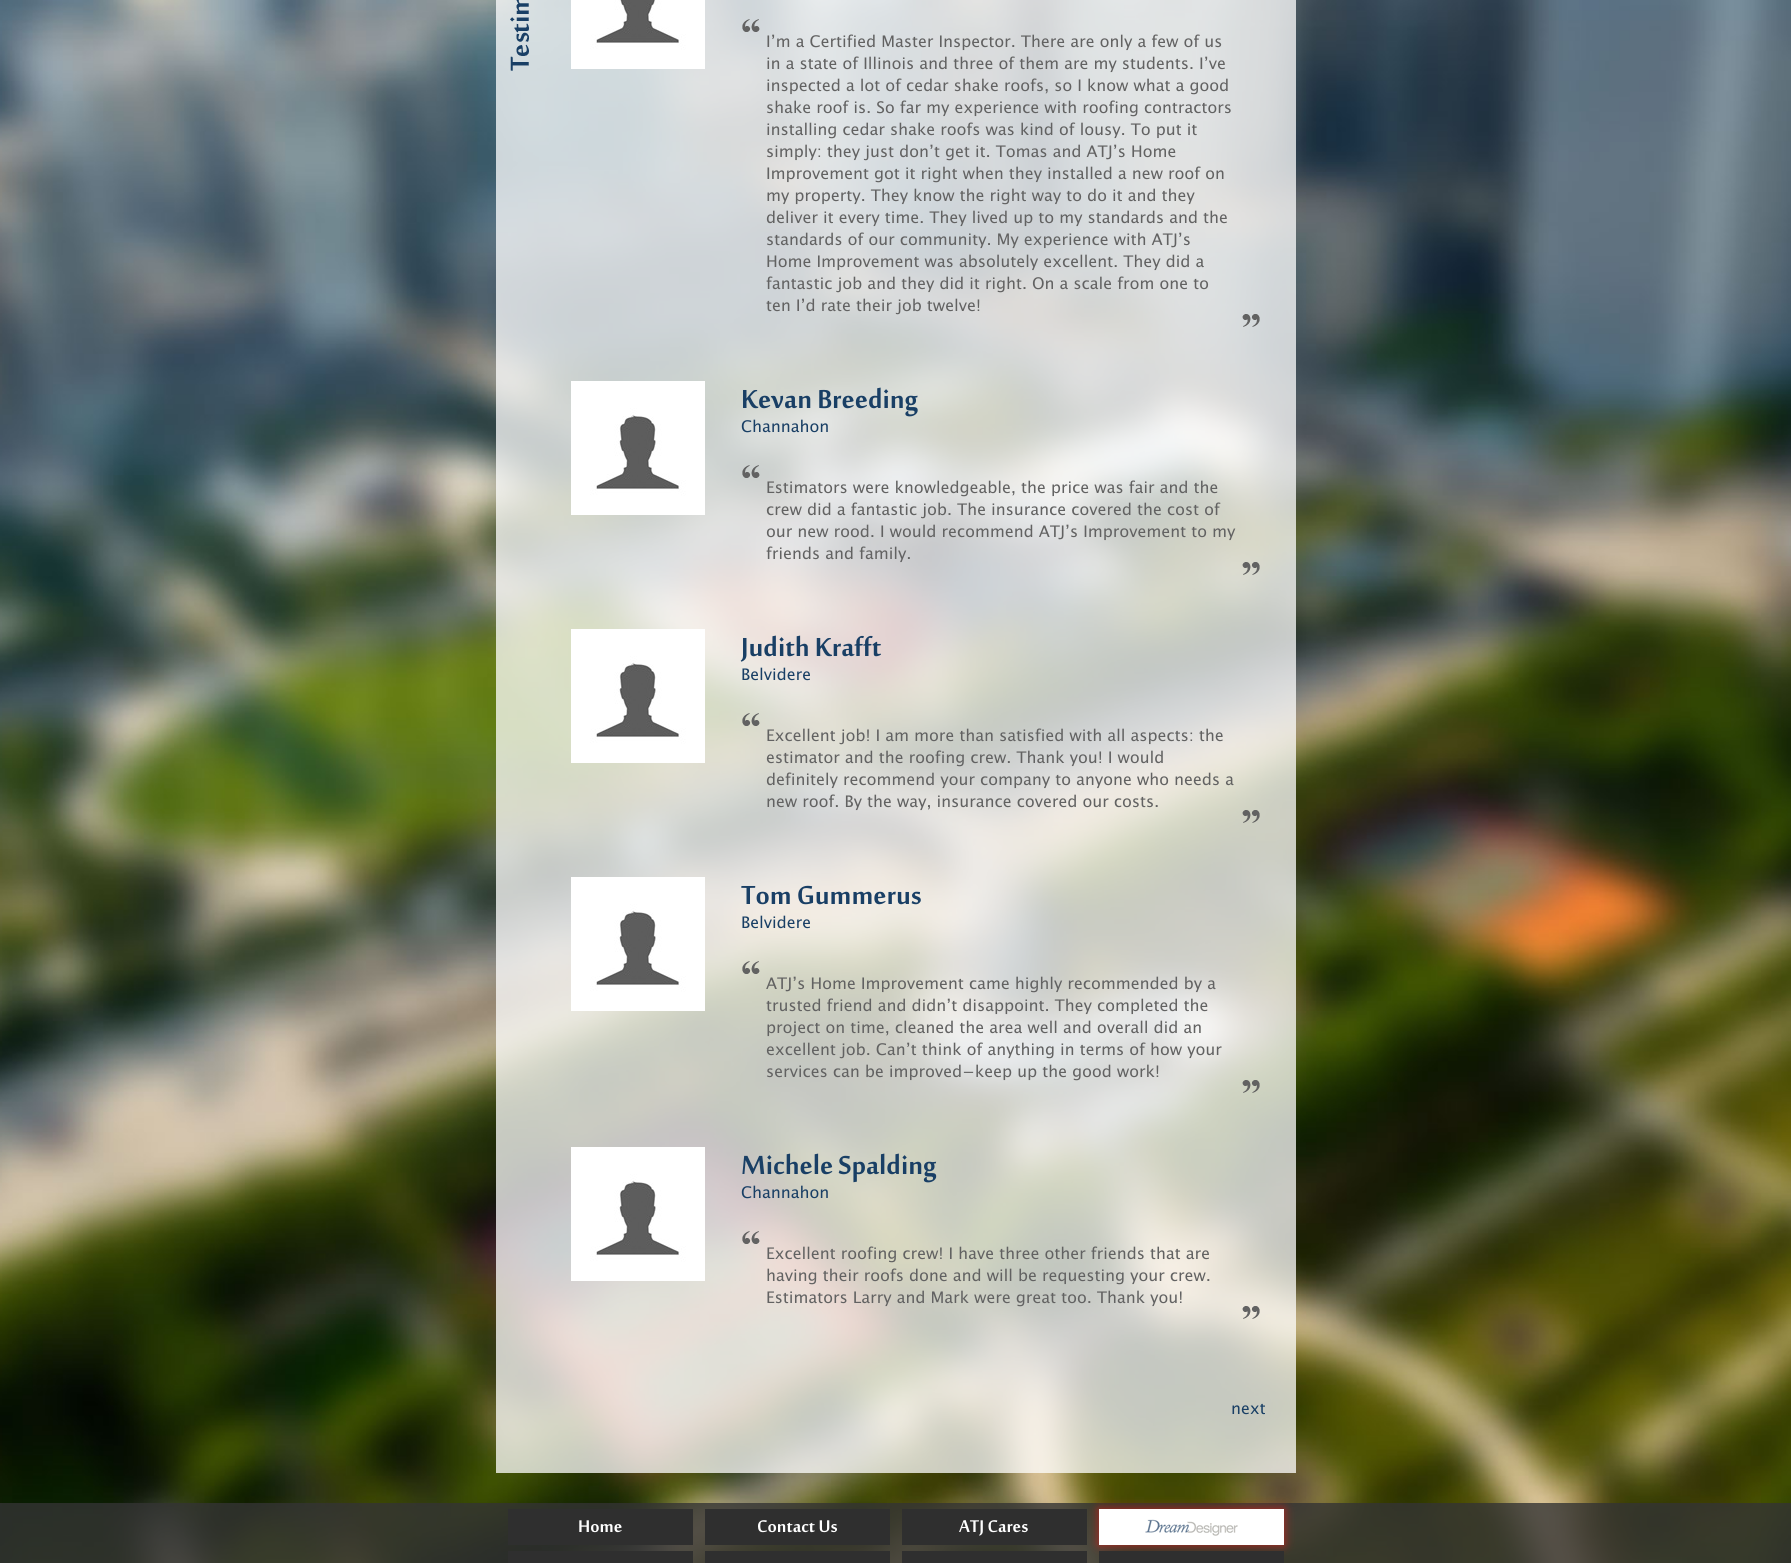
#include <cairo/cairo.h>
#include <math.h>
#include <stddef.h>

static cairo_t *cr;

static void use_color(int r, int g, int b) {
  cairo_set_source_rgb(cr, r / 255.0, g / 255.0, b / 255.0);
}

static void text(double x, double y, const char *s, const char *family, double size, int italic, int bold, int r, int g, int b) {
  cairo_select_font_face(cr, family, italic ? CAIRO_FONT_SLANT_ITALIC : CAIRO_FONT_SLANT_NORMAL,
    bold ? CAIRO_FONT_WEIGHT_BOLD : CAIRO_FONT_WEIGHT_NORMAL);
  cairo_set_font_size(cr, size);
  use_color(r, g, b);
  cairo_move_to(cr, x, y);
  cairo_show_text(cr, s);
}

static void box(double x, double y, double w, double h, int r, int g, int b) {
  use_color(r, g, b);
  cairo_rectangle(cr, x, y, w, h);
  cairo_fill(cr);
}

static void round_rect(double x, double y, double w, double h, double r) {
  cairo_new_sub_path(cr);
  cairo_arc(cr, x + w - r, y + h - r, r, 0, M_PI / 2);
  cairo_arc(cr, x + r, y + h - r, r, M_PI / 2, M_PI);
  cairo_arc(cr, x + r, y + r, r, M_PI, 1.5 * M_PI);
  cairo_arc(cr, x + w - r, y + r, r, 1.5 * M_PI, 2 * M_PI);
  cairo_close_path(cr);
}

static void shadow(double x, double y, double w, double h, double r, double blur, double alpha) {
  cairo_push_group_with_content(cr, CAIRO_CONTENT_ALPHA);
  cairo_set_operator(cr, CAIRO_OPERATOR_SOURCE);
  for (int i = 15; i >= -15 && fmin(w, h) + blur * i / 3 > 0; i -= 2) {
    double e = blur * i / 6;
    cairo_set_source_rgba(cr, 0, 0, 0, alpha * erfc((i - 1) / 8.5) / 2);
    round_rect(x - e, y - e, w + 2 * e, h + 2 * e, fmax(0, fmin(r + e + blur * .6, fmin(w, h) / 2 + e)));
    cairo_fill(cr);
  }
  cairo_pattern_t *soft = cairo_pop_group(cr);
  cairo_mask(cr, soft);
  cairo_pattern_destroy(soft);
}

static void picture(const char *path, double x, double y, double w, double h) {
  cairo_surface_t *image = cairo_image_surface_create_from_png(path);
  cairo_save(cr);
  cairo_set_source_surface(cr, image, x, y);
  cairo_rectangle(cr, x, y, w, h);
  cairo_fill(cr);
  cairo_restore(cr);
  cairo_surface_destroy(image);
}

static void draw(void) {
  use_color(255, 255, 255);
  cairo_paint(cr);
  picture("img_01.png", 0, 0, 1791, 1563);
  cairo_set_source_rgba(cr, 1, 1, 1, 0.75);
  cairo_rectangle(cr, 496, 0, 800, 1473);
  cairo_fill(cr);
  picture("img_02.png", 510, 0, 19, 71);
  cairo_rectangle(cr, 572.5, -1.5, 131, 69);
  use_color(255, 255, 255);
  cairo_set_line_width(cr, 3);
  cairo_stroke(cr);
  picture("img_03.png", 574, 0, 128, 66);
  picture("img_04.png", 742, 19, 18, 13);
  picture("img_05.png", 767, 34, 455, 17);
  picture("img_06.png", 767, 56, 458, 17);
  picture("img_07.png", 767, 78, 461, 17);
  picture("img_08.png", 767, 100, 464, 17);
  picture("img_09.png", 767, 122, 430, 17);
  picture("img_10.png", 767, 144, 409, 17);
  picture("img_11.png", 767, 166, 457, 17);
  picture("img_12.png", 767, 188, 428, 17);
  picture("img_13.png", 766, 210, 461, 17);
  picture("img_14.png", 767, 232, 423, 17);
  picture("img_15.png", 767, 254, 437, 17);
  picture("img_16.png", 766, 276, 443, 17);
  picture("img_17.png", 766, 298, 214, 17);
  picture("img_18.png", 1242, 314, 18, 13);
  cairo_rectangle(cr, 572.5, 382.5, 131, 131);
  cairo_stroke(cr);
  picture("img_19.png", 574, 384, 128, 128);
  picture("img_20.png", 741, 419, 87, 14);
  picture("img_21.png", 742, 465, 18, 13);
  picture("img_22.png", 767, 480, 451, 17);
  picture("img_23.png", 766, 502, 455, 17);
  picture("img_24.png", 766, 524, 470, 17);
  picture("img_25.png", 766, 546, 144, 17);
  picture("img_26.png", 1242, 562, 18, 13);
  cairo_rectangle(cr, 572.5, 630.5, 131, 131);
  cairo_stroke(cr);
  picture("img_19.png", 574, 632, 128, 128);
  picture("img_27.png", 742, 667, 68, 14);
  picture("img_28.png", 742, 713, 18, 13);
  picture("img_29.png", 767, 728, 456, 17);
  picture("img_30.png", 766, 750, 397, 17);
  picture("img_31.png", 766, 772, 468, 17);
  picture("img_32.png", 767, 794, 391, 17);
  picture("img_33.png", 1242, 810, 18, 13);
  cairo_rectangle(cr, 572.5, 878.5, 131, 131);
  cairo_stroke(cr);
  picture("img_19.png", 574, 880, 128, 128);
  picture("img_34.png", 742, 915, 68, 14);
  picture("img_35.png", 742, 961, 18, 13);
  picture("img_36.png", 766, 976, 450, 17);
  picture("img_37.png", 766, 998, 442, 17);
  picture("img_38.png", 767, 1020, 434, 17);
  picture("img_39.png", 766, 1042, 456, 17);
  picture("img_40.png", 767, 1064, 392, 17);
  picture("img_41.png", 1242, 1080, 18, 13);
  cairo_rectangle(cr, 572.5, 1148.5, 131, 131);
  cairo_stroke(cr);
  picture("img_19.png", 574, 1150, 128, 128);
  picture("img_42.png", 741, 1185, 87, 14);
  picture("img_43.png", 742, 1231, 18, 13);
  picture("img_44.png", 767, 1246, 442, 17);
  picture("img_45.png", 767, 1268, 443, 17);
  picture("img_46.png", 767, 1290, 415, 17);
  picture("img_47.png", 1242, 1306, 18, 13);
  picture("img_48.png", 1232, 1403, 33, 12);
  cairo_set_source_rgba(cr, 0.204, 0.204, 0.204, 0.8);
  cairo_rectangle(cr, 0, 1503, 1791, 60);
  cairo_fill(cr);
  box(508, 1509, 185, 36, 47, 47, 47);
  box(705, 1509, 185, 36, 47, 47, 47);
  box(902, 1509, 185, 36, 47, 47, 47);
  use_color(239, 27, 27);
  shadow(1099, 1509, 185, 36, 0, 5, 0.75);
  box(1099, 1509, 185, 36, 255, 255, 255);
  picture("img_49.png", 1145, 1519, 93, 17);
  box(508, 1551, 185, 12, 47, 47, 47);
  box(705, 1551, 185, 12, 47, 47, 47);
  box(902, 1551, 185, 12, 47, 47, 47);
  box(1099, 1551, 185, 12, 47, 47, 47);
  text(741, 408, "Kevan Breeding", "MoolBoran", 40, 0, 0, 25, 63, 101);
  text(741, 656, "Judith Krafft", "MoolBoran", 40, 0, 0, 25, 63, 101);
  text(741, 904, "Tom Gummerus", "MoolBoran", 40, 0, 0, 25, 63, 101);
  text(741, 1174, "Michele Spalding", "MoolBoran", 40, 0, 0, 25, 63, 101);
  text(578, 1532, "Home", "MoolBoran", 26, 0, 0, 255, 255, 255);
  text(757, 1532, "Contact Us", "MoolBoran", 26, 0, 0, 255, 255, 255);
  text(959, 1532, "ATJ Cares", "MoolBoran", 26, 0, 0, 255, 255, 255);
}

int main(void) {
  cairo_surface_t *surface = cairo_image_surface_create(CAIRO_FORMAT_RGB24, 1791, 1563);
  cr = cairo_create(surface);
  cairo_font_options_t *options = cairo_font_options_create();
  cairo_font_options_set_hint_metrics(options, CAIRO_HINT_METRICS_OFF);
  cairo_font_options_set_hint_style(options, CAIRO_HINT_STYLE_NONE);
  cairo_set_font_options(cr, options);
  cairo_set_miter_limit(cr, 4);
  draw();
  cairo_surface_write_to_png(surface, "out.png");
  cairo_font_options_destroy(options);
  cairo_destroy(cr);
  cairo_surface_destroy(surface);
  return 0;
}
